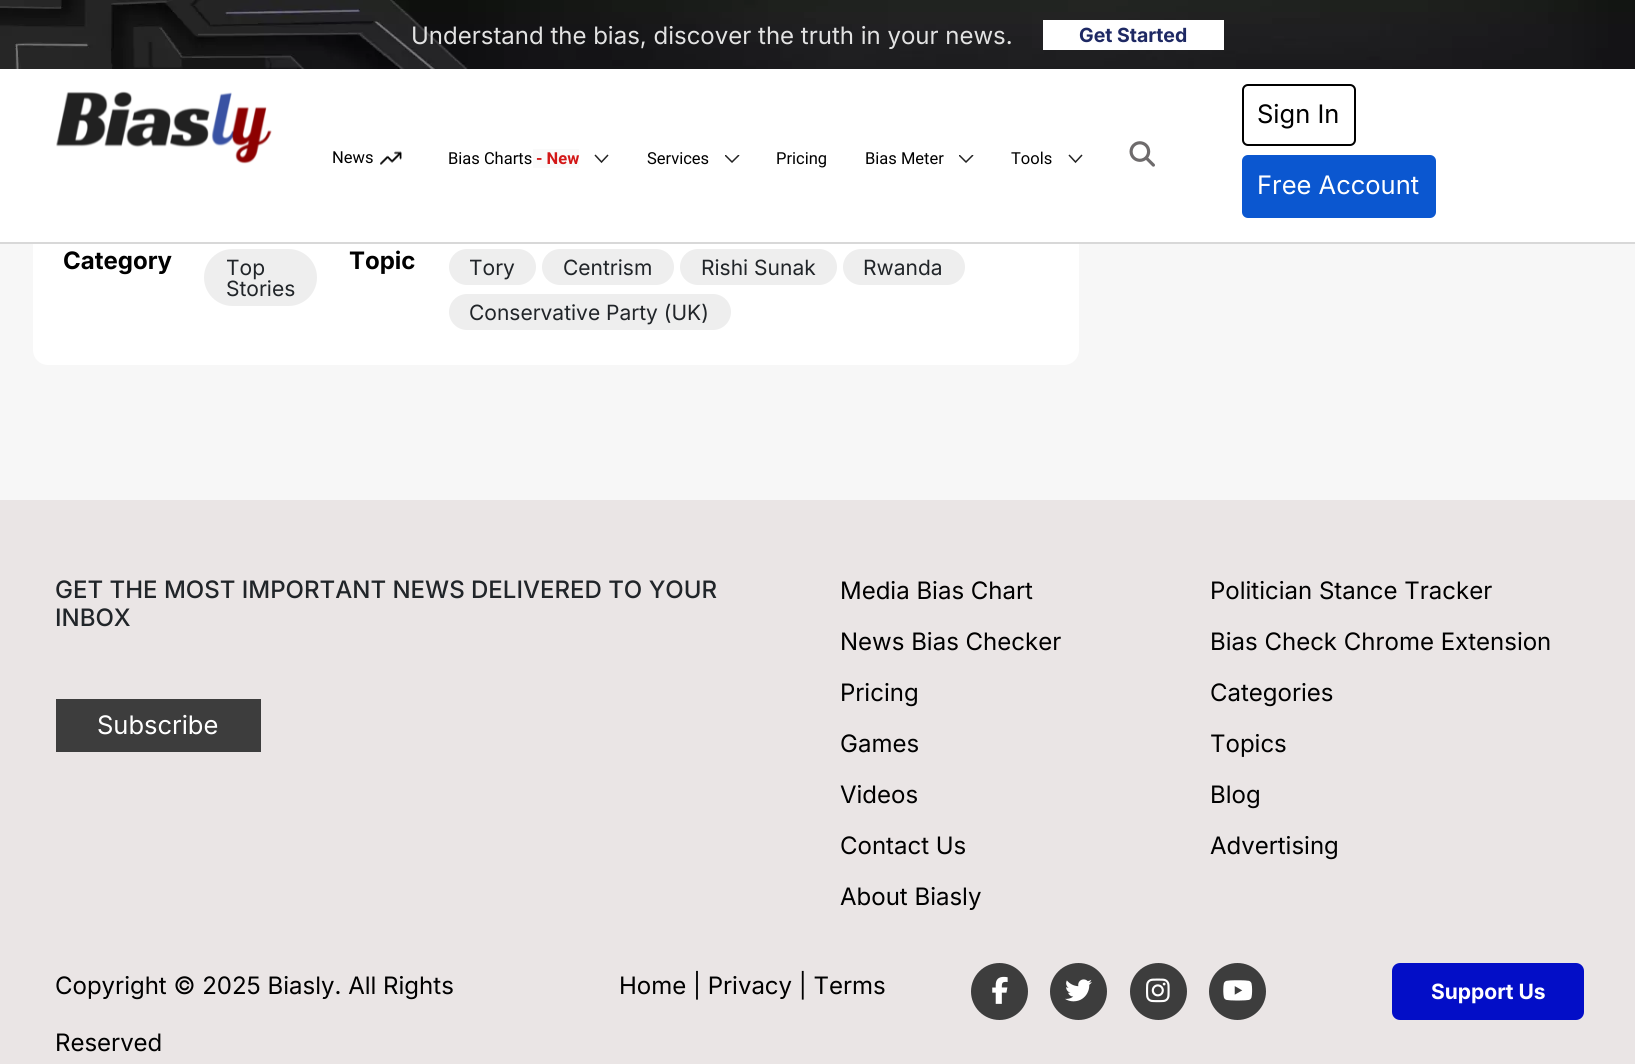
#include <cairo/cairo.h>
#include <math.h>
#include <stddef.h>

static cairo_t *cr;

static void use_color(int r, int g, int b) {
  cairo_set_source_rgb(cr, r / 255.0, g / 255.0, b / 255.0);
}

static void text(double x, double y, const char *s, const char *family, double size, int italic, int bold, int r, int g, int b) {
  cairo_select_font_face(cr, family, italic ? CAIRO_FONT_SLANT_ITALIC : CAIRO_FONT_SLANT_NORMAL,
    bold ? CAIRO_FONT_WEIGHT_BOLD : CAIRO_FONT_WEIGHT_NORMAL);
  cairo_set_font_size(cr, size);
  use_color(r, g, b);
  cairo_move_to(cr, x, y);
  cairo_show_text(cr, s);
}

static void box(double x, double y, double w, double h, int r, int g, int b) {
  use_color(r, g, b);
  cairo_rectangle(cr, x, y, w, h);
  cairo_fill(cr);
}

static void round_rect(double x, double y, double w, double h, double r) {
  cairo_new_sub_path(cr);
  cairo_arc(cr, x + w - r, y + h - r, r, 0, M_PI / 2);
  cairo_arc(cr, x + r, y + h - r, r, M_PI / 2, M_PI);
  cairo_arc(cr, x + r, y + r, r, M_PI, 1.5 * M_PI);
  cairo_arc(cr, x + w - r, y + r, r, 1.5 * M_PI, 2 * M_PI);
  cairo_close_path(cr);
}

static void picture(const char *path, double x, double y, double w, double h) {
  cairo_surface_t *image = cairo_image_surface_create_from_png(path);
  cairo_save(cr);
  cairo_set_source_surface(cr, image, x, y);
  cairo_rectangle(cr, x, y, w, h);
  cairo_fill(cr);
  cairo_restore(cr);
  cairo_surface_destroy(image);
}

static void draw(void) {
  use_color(247, 247, 247);
  cairo_paint(cr);
  picture("img_01.png", 0, 0, 1635, 69);
  box(1043, 20, 181, 30, 255, 255, 255);
  round_rect(33, 215, 1046, 150, 15);
  cairo_fill(cr);
  box(0, 69, 1635, 173, 255, 255, 255);
  box(0, 242, 1635, 2, 216, 216, 216);
  picture("img_02.png", 56, 91, 216, 73);
  picture("img_03.png", 380, 151, 22, 14);
  box(533, 149, 46, 19, 250, 250, 250);
  cairo_new_path(cr);
  cairo_move_to(cr, 608, 155);
  cairo_line_to(cr, 601.5, 162);
  cairo_line_to(cr, 595, 155);
  use_color(34, 34, 34);
  cairo_set_line_width(cr, 1.5);
  cairo_stroke(cr);
  cairo_save(cr);
  cairo_rectangle(cr, 725, 155, 15, 9);
  cairo_clip(cr);
  cairo_new_path(cr);
  cairo_move_to(cr, 739, 155);
  cairo_line_to(cr, 732, 162);
  cairo_line_to(cr, 725, 155);
  cairo_stroke(cr);
  cairo_restore(cr);
  cairo_save(cr);
  cairo_rectangle(cr, 959, 155, 15, 9);
  cairo_clip(cr);
  cairo_new_path(cr);
  cairo_move_to(cr, 973, 155);
  cairo_line_to(cr, 966, 162);
  cairo_line_to(cr, 959, 155);
  cairo_stroke(cr);
  cairo_restore(cr);
  cairo_new_path(cr);
  cairo_move_to(cr, 1082, 155);
  cairo_line_to(cr, 1075.5, 162);
  cairo_line_to(cr, 1069, 155);
  cairo_stroke(cr);
  picture("img_04.png", 1129, 141, 26, 26);
  round_rect(1243, 85, 112, 60, 5);
  use_color(0, 0, 0);
  cairo_set_line_width(cr, 2);
  cairo_stroke(cr);
  use_color(11, 87, 208);
  round_rect(1243, 156, 192, 61, 5);
  cairo_fill_preserve(cr);
  cairo_stroke(cr);
  use_color(238, 238, 238);
  round_rect(204, 249, 113, 57, 28.5);
  cairo_fill(cr);
  round_rect(449, 249, 87, 36, 18);
  cairo_fill(cr);
  round_rect(542, 249, 132, 36, 18);
  cairo_fill(cr);
  round_rect(680, 249, 157, 36, 18);
  cairo_fill(cr);
  round_rect(843, 249, 122, 36, 18);
  cairo_fill(cr);
  round_rect(449, 294, 282, 36, 18);
  cairo_fill(cr);
  box(0, 500, 1635, 564, 234, 229, 229);
  box(56, 699, 205, 53, 61, 61, 61);
  cairo_arc(cr, 999.5, 991.5, 28.5, 0, 2 * M_PI);
  cairo_fill(cr);
  picture("img_05.png", 992, 976, 16, 28);
  cairo_arc(cr, 1078.5, 991.5, 28.5, 0, 2 * M_PI);
  cairo_fill(cr);
  picture("img_06.png", 1065, 979, 27, 23);
  cairo_arc(cr, 1158.5, 991.5, 28.5, 0, 2 * M_PI);
  cairo_fill(cr);
  picture("img_07.png", 1146, 978, 24, 25);
  cairo_arc(cr, 1237.5, 991.5, 28.5, 0, 2 * M_PI);
  cairo_fill(cr);
  picture("img_08.png", 1223, 980, 30, 21);
  use_color(3, 14, 199);
  round_rect(1392, 963, 192, 57, 8);
  cairo_fill(cr);
  text(411, 44, "Understand the bias, discover the truth in your news.", "Inter", 24, 0, 0, 226, 226, 226);
  text(1079, 42, "Get Started", "Inter", 19.5, 0, 1, 30, 41, 100);
  text(332, 163, "News", "Roboto", 16.5, 0, 0, 0, 0, 0);
  text(448, 164, "Bias Charts", "Roboto", 16.5, 0, 0, 0, 0, 0);
  text(536, 164, "- New", "Roboto", 16.5, 0, 1, 211, 23, 23);
  text(647, 164, "Services", "Roboto", 16.5, 0, 0, 0, 0, 0);
  text(776, 164, "Pricing", "Roboto", 16.5, 0, 0, 0, 0, 0);
  text(865, 164, "Bias Meter", "Roboto", 16.5, 0, 0, 0, 0, 0);
  text(1011, 164, "Tools", "Roboto", 16.5, 0, 0, 0, 0, 0);
  text(1257, 123, "Sign In", "Inter", 25.5, 0, 0, 0, 0, 0);
  text(1257, 194, "Free Account", "Inter", 25.5, 0, 0, 255, 255, 255);
  text(63, 269, "Category", "Inter", 24, 0, 1, 0, 0, 0);
  text(226, 275, "Top", "Inter", 21, 0, 0, 33, 37, 41);
  text(226, 296, "Stories", "Inter", 21, 0, 0, 33, 37, 41);
  text(349, 269, "Topic", "Inter", 24, 0, 1, 0, 0, 0);
  text(469, 275, "Tory", "Inter", 21, 0, 0, 33, 37, 41);
  text(563, 275, "Centrism", "Inter", 21, 0, 0, 33, 37, 41);
  text(701, 275, "Rishi Sunak", "Inter", 21, 0, 0, 33, 37, 41);
  text(863, 275, "Rwanda", "Inter", 21, 0, 0, 33, 37, 41);
  text(469, 320, "Conservative Party (UK)", "Inter", 21, 0, 0, 33, 37, 41);
  text(55, 598, "GET THE MOST IMPORTANT NEWS DELIVERED TO YOUR", "Inter Medium", 24, 0, 0, 33, 37, 41);
  text(55, 626, "INBOX", "Inter Medium", 24, 0, 0, 33, 37, 41);
  text(97, 734, "Subscribe", "Inter", 25.5, 0, 0, 255, 255, 255);
  text(840, 599, "Media Bias Chart", "Inter", 24, 0, 0, 0, 0, 0);
  text(1210, 599, "Politician Stance Tracker", "Inter", 24, 0, 0, 0, 0, 0);
  text(840, 650, "News Bias Checker", "Inter", 24, 0, 0, 0, 0, 0);
  text(1210, 650, "Bias Check Chrome Extension", "Inter", 24, 0, 0, 0, 0, 0);
  text(840, 701, "Pricing", "Inter", 24, 0, 0, 0, 0, 0);
  text(1210, 701, "Categories", "Inter", 24, 0, 0, 0, 0, 0);
  text(840, 752, "Games", "Inter", 24, 0, 0, 0, 0, 0);
  text(1210, 752, "Topics", "Inter", 24, 0, 0, 0, 0, 0);
  text(840, 803, "Videos", "Inter", 24, 0, 0, 0, 0, 0);
  text(1210, 803, "Blog", "Inter", 24, 0, 0, 0, 0, 0);
  text(840, 854, "Contact Us", "Inter", 24, 0, 0, 0, 0, 0);
  text(1210, 854, "Advertising", "Inter", 24, 0, 0, 0, 0, 0);
  text(840, 905, "About Biasly", "Inter", 24, 0, 0, 0, 0, 0);
  text(55, 994, "Copyright © 2025 Biasly. All Rights", "Inter", 24, 0, 0, 0, 0, 0);
  text(55, 1051, "Reserved", "Inter", 24, 0, 0, 0, 0, 0);
  text(619, 994, "Home | Privacy | Terms", "Inter", 24, 0, 0, 0, 0, 0);
  text(1431, 999, "Support Us", "Inter", 21, 0, 1, 255, 255, 255);
}

int main(void) {
  cairo_surface_t *surface = cairo_image_surface_create(CAIRO_FORMAT_RGB24, 1635, 1064);
  cr = cairo_create(surface);
  cairo_font_options_t *options = cairo_font_options_create();
  cairo_font_options_set_hint_metrics(options, CAIRO_HINT_METRICS_OFF);
  cairo_font_options_set_hint_style(options, CAIRO_HINT_STYLE_NONE);
  cairo_set_font_options(cr, options);
  cairo_set_miter_limit(cr, 4);
  draw();
  cairo_surface_write_to_png(surface, "out.png");
  cairo_font_options_destroy(options);
  cairo_destroy(cr);
  cairo_surface_destroy(surface);
  return 0;
}
